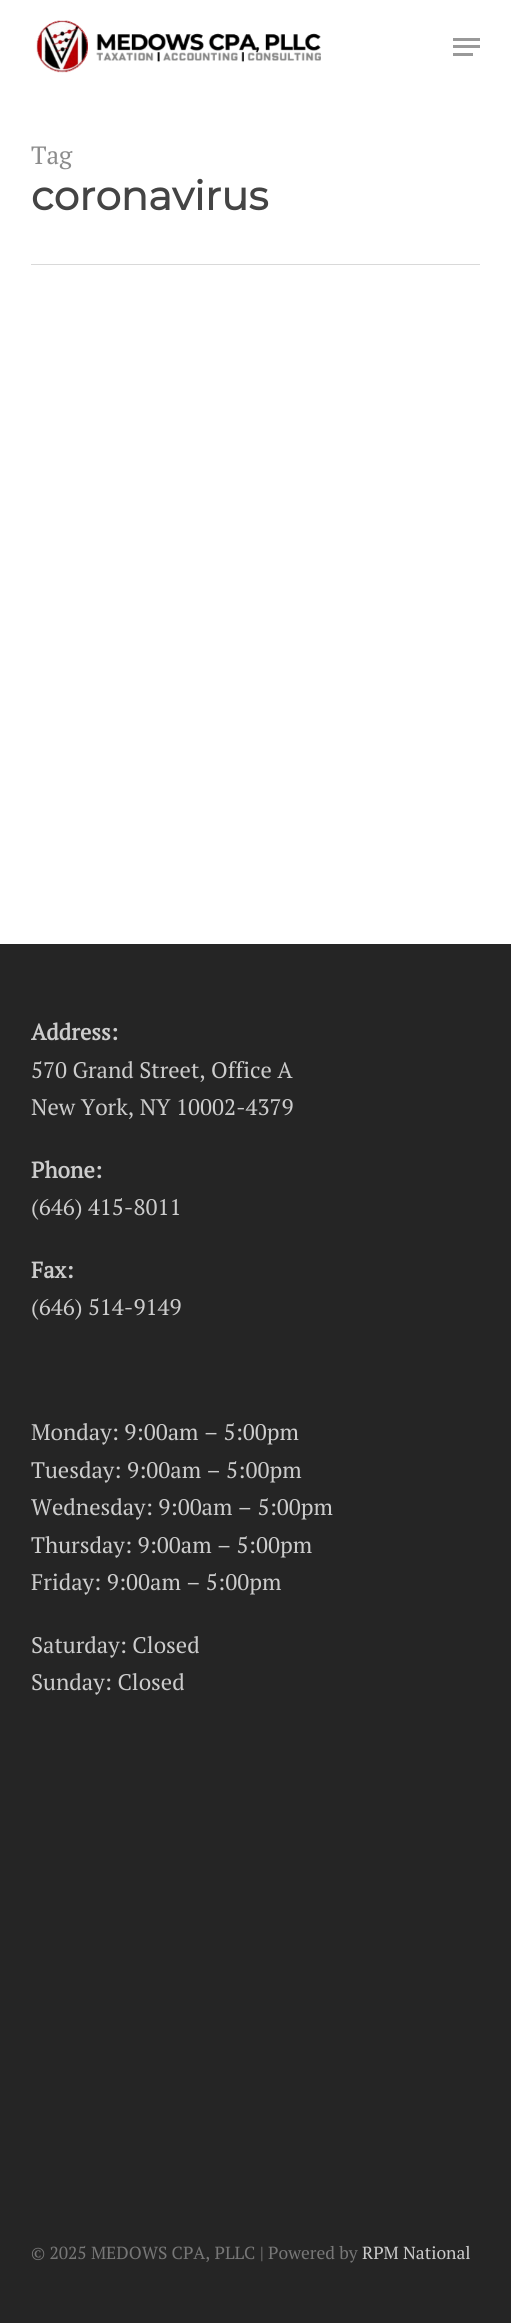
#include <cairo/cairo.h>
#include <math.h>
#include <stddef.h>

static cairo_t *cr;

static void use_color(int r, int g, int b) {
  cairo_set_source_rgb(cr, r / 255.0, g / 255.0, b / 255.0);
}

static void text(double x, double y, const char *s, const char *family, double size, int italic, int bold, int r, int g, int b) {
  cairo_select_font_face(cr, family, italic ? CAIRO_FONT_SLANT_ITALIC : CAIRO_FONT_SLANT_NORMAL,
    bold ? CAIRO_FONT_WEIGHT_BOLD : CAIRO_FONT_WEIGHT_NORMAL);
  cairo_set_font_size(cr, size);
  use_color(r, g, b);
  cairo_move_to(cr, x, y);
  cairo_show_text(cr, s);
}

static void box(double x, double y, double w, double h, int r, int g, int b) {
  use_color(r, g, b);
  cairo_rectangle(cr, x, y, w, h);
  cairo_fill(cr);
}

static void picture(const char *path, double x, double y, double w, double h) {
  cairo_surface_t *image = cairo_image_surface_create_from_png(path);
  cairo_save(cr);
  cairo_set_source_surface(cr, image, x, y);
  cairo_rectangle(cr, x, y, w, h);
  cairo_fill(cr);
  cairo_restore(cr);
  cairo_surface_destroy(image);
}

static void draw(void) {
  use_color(255, 255, 255);
  cairo_paint(cr);
  picture("img_01.png", 36, 20, 285, 53);
  box(453, 38, 27, 3, 153, 153, 153);
  box(453, 53, 20, 3, 153, 153, 153);
  box(453, 45, 27, 3, 153, 153, 153);
  box(31, 264, 449, 1, 217, 217, 217);
  box(0, 944, 511, 1379, 37, 37, 37);
  text(31, 164, "Tag", "PT Serif", 25, 0, 0, 140, 140, 140);
  text(31, 210, "coronavirus", "Montserrat", 40.5, 0, 1, 68, 68, 68);
  text(31, 1040, "Address:", "PT Serif", 22.5, 0, 1, 204, 204, 204);
  text(31, 1078, "570 Grand Street, Office A", "PT Serif", 22.5, 0, 0, 204, 204, 204);
  text(31, 1115, "New York, NY 10002-4379", "PT Serif", 22.5, 0, 0, 204, 204, 204);
  text(31, 1178, "Phone:", "PT Serif", 22.5, 0, 1, 204, 204, 204);
  text(31, 1215, "(646) 415-8011", "PT Serif", 22.5, 0, 0, 204, 204, 204);
  text(31, 1278, "Fax:", "PT Serif", 22.5, 0, 1, 204, 204, 204);
  text(31, 1315, "(646) 514-9149", "PT Serif", 22.5, 0, 0, 204, 204, 204);
  text(31, 1440, "Monday: 9:00am – 5:00pm", "PT Serif", 22.5, 0, 0, 204, 204, 204);
  text(31, 1478, "Tuesday: 9:00am – 5:00pm", "PT Serif", 22.5, 0, 0, 204, 204, 204);
  text(31, 1515, "Wednesday: 9:00am – 5:00pm", "PT Serif", 22.5, 0, 0, 204, 204, 204);
  text(31, 1553, "Thursday: 9:00am – 5:00pm", "PT Serif", 22.5, 0, 0, 204, 204, 204);
  text(31, 1590, "Friday: 9:00am – 5:00pm", "PT Serif", 22.5, 0, 0, 204, 204, 204);
  text(31, 1653, "Saturday: Closed", "PT Serif", 22.5, 0, 0, 204, 204, 204);
  text(31, 1690, "Sunday: Closed", "PT Serif", 22.5, 0, 0, 204, 204, 204);
  text(31, 2259, "© 2025 MEDOWS CPA, PLLC | Powered by", "PT Serif", 17.5, 0, 0, 119, 119, 119);
  text(362, 2259, "RPM National", "PT Serif", 17.5, 0, 0, 204, 204, 204);
}

int main(void) {
  cairo_surface_t *surface = cairo_image_surface_create(CAIRO_FORMAT_RGB24, 511, 2323);
  cr = cairo_create(surface);
  cairo_font_options_t *options = cairo_font_options_create();
  cairo_font_options_set_hint_metrics(options, CAIRO_HINT_METRICS_OFF);
  cairo_font_options_set_hint_style(options, CAIRO_HINT_STYLE_NONE);
  cairo_set_font_options(cr, options);
  cairo_set_miter_limit(cr, 4);
  draw();
  cairo_surface_write_to_png(surface, "out.png");
  cairo_font_options_destroy(options);
  cairo_destroy(cr);
  cairo_surface_destroy(surface);
  return 0;
}
